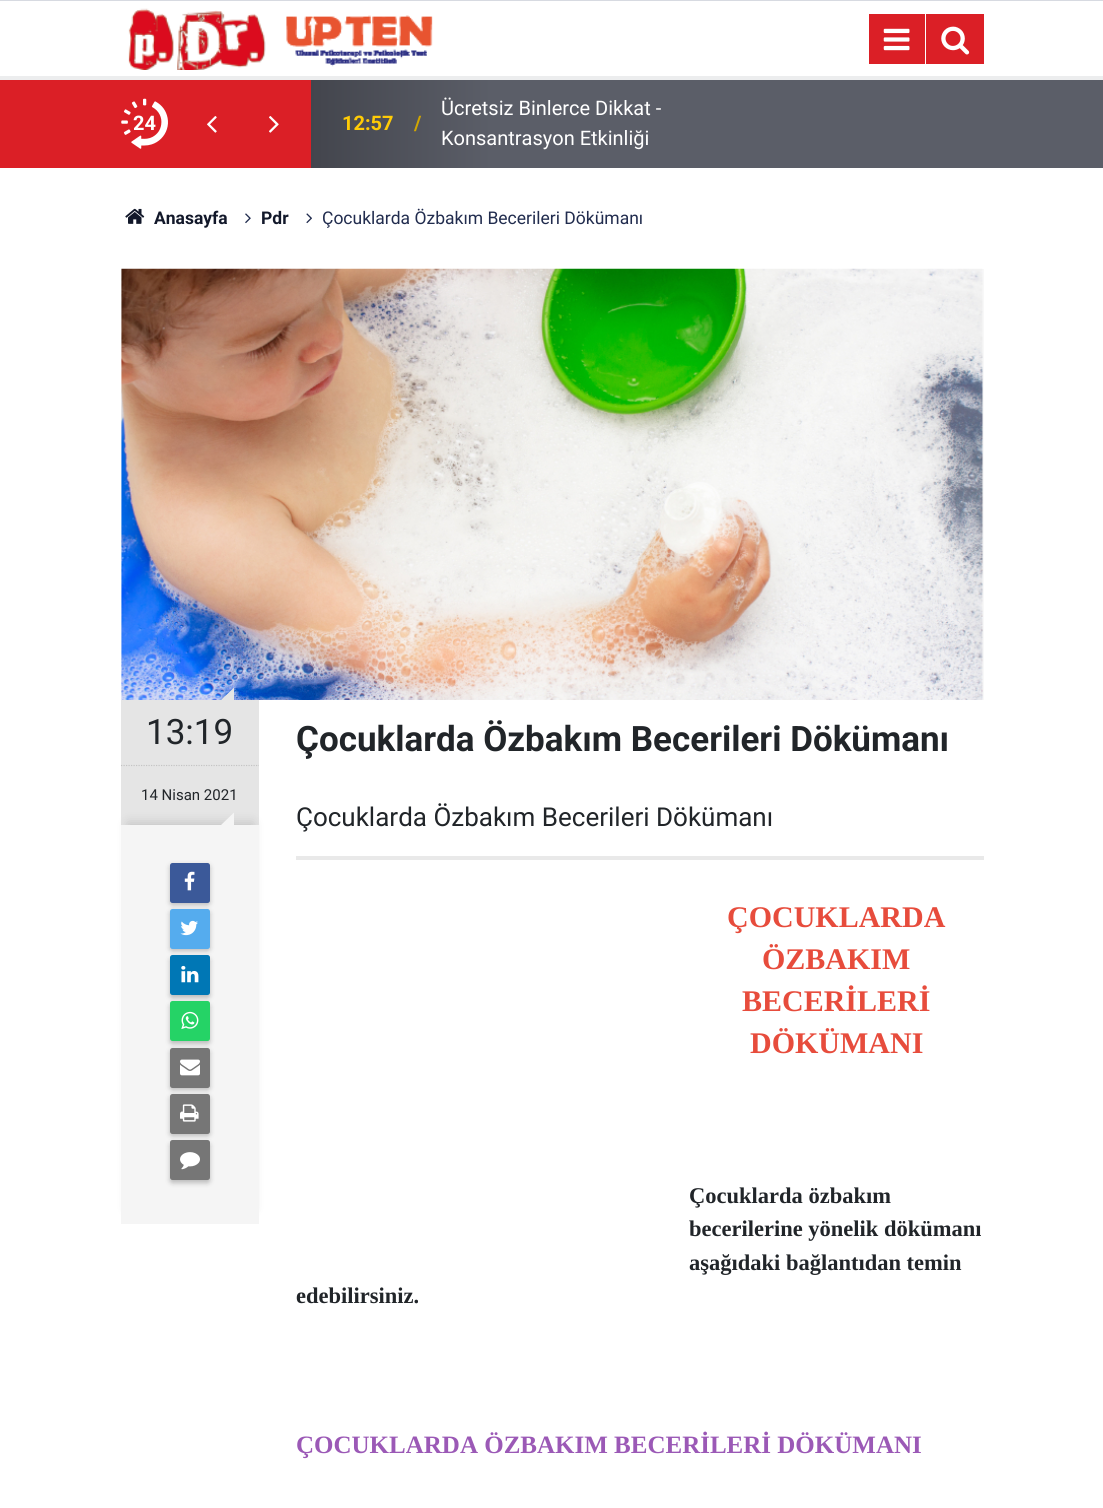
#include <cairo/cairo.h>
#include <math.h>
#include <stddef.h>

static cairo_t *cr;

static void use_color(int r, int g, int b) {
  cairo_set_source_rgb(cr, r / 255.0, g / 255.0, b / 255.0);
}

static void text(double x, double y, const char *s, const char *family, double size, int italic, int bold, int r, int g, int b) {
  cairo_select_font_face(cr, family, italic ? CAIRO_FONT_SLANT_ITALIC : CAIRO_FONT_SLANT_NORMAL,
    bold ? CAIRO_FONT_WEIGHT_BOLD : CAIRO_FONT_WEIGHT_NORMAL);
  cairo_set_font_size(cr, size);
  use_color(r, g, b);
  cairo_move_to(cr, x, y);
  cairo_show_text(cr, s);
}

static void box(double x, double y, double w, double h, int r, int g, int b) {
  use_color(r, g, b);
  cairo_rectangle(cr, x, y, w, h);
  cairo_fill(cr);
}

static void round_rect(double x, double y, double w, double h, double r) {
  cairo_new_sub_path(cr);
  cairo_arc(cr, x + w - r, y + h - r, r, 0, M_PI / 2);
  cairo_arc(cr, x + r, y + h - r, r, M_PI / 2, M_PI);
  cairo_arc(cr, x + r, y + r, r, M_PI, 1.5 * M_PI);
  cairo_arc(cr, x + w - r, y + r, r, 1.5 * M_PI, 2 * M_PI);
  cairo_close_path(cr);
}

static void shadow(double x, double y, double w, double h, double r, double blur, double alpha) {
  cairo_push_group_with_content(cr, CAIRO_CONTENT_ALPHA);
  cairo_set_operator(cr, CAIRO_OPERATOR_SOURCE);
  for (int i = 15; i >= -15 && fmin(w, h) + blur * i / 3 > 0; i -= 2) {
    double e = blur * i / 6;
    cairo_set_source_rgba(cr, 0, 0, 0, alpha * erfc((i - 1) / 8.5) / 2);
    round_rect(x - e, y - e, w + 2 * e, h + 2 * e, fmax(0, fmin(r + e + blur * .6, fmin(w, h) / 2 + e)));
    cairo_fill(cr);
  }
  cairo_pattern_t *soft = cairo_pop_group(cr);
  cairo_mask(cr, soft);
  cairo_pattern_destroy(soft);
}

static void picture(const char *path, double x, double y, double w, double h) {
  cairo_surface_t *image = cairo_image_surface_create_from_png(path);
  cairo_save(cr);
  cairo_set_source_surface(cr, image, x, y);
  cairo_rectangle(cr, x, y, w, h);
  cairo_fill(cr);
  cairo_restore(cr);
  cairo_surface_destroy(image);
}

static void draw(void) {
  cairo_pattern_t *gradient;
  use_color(255, 255, 255);
  cairo_paint(cr);
  box(0, 0, 1103, 1, 215, 218, 225);
  box(0, 76, 1103, 4, 236, 237, 238);
  picture("img_01.png", 128, 8, 305, 62);
  box(869, 14, 56, 50, 219, 31, 38);
  picture("img_02.png", 883, 28, 27, 23);
  box(926, 14, 58, 50, 219, 31, 38);
  picture("img_03.png", 941, 26, 29, 29);
  box(0, 80, 121, 88, 219, 31, 38);
  box(984, 80, 119, 88, 91, 94, 104);
  gradient = cairo_pattern_create_linear(121, 124, 983, 124);
  cairo_pattern_add_color_stop_rgba(gradient, 0.07, 0.859, 0.122, 0.149, 1);
  cairo_pattern_add_color_stop_rgba(gradient, 0.22, 0.859, 0.122, 0.149, 1);
  cairo_pattern_add_color_stop_rgba(gradient, 0.22, 0.263, 0.271, 0.302, 1);
  cairo_pattern_add_color_stop_rgba(gradient, 0.43, 0.357, 0.369, 0.408, 1);
  cairo_set_source(cr, gradient);
  cairo_pattern_destroy(gradient);
  cairo_rectangle(cr, 121, 80, 863, 88);
  cairo_fill(cr);
  picture("img_04.png", 121, 98, 47, 51);
  picture("img_05.png", 207, 116, 10, 17);
  picture("img_06.png", 269, 116, 10, 17);
  picture("img_07.png", 125, 208, 20, 16);
  picture("img_08.png", 245, 213, 6, 11);
  picture("img_09.png", 306, 213, 6, 11);
  box(121, 269, 863, 431, 248, 248, 248);
  picture("img_10.png", 121, 268, 862, 432);
  box(121, 700, 138, 125, 229, 229, 229);
  cairo_new_path(cr);
  cairo_move_to(cr, 234, 700);
  cairo_line_to(cr, 221, 700);
  cairo_line_to(cr, 234, 687.5);
  cairo_close_path(cr);
  cairo_fill(cr);
  cairo_new_path(cr);
  cairo_move_to(cr, 121, 765.5);
  cairo_line_to(cr, 259, 765.5);
  use_color(195, 195, 195);
  cairo_set_line_width(cr, 1.2);
  cairo_set_dash(cr, (double[]){1.25, 1.25}, 2, 0);
  cairo_stroke(cr);
  use_color(0, 0, 0);
  shadow(128, 823, 125, 386, 0, 6, 0.15);
  box(121, 825, 138, 399, 245, 245, 245);
  cairo_new_path(cr);
  cairo_move_to(cr, 234, 825);
  cairo_line_to(cr, 221, 825);
  cairo_line_to(cr, 234, 812.5);
  cairo_close_path(cr);
  cairo_fill(cr);
  use_color(50, 50, 50);
  shadow(170, 865, 40, 40, 2.5, 2.5, 0.3);
  use_color(59, 89, 153);
  round_rect(170, 863, 40, 40, 2.5);
  cairo_fill(cr);
  picture("img_11.png", 184, 871, 11, 20);
  use_color(50, 50, 50);
  shadow(170, 911, 40, 40, 2.5, 2.5, 0.3);
  use_color(85, 172, 238);
  round_rect(170, 909, 40, 40, 2.5);
  cairo_fill(cr);
  picture("img_12.png", 180, 920, 18, 16);
  use_color(50, 50, 50);
  shadow(170, 958, 40, 40, 2.5, 2.5, 0.3);
  use_color(0, 119, 181);
  round_rect(170, 955, 40, 40, 2.5);
  cairo_fill(cr);
  picture("img_13.png", 181, 965, 18, 18);
  use_color(50, 50, 50);
  shadow(170, 1004, 40, 40, 2.5, 2.5, 0.3);
  use_color(37, 211, 102);
  round_rect(170, 1001, 40, 40, 2.5);
  cairo_fill(cr);
  picture("img_14.png", 181, 1011, 18, 19);
  use_color(50, 50, 50);
  shadow(170, 1050, 40, 40, 2.5, 2.5, 0.3);
  use_color(118, 118, 118);
  round_rect(170, 1048, 40, 40, 2.5);
  cairo_fill(cr);
  picture("img_15.png", 180, 1059, 20, 17);
  use_color(50, 50, 50);
  shadow(170, 1096, 40, 40, 2.5, 2.5, 0.3);
  use_color(118, 118, 118);
  round_rect(170, 1094, 40, 40, 2.5);
  cairo_fill(cr);
  picture("img_16.png", 180, 1104, 19, 18);
  use_color(50, 50, 50);
  shadow(170, 1143, 40, 40, 2.5, 2.5, 0.3);
  use_color(118, 118, 118);
  round_rect(170, 1140, 40, 40, 2.5);
  cairo_fill(cr);
  picture("img_17.png", 180, 1152, 20, 18);
  box(296, 856, 688, 4, 233, 233, 233);
  text(133, 130, "24", "Roboto", 20, 0, 1, 255, 255, 255);
  text(342, 130, "12:57", "Roboto", 20, 0, 1, 255, 203, 5);
  text(414, 130, "/", "Roboto", 20, 0, 1, 209, 166, 0);
  text(441, 115, "Ücretsiz Binlerce Dikkat -", "Roboto", 20, 0, 0, 255, 255, 255);
  text(441, 145, "Konsantrasyon Etkinliği", "Roboto", 20, 0, 0, 255, 255, 255);
  text(154, 224, "Anasayfa", "Roboto", 17.5, 0, 1, 18, 24, 42);
  text(261, 224, "Pdr", "Roboto", 17.5, 0, 1, 18, 24, 42);
  text(322, 224, "Çocuklarda Özbakım Becerileri Dökümanı", "Roboto", 17.5, 0, 0, 33, 44, 78);
  text(146, 744, "13:19", "Roboto", 35, 0, 0, 33, 37, 41);
  text(141, 800, "14 Nisan 2021", "Roboto", 15, 0, 0, 33, 37, 41);
  text(296, 751, "Çocuklarda Özbakım Becerileri Dökümanı", "Roboto", 35, 0, 1, 33, 37, 41);
  text(296, 826, "Çocuklarda Özbakım Becerileri Dökümanı", "Roboto", 26, 0, 0, 33, 37, 41);
  text(727, 927, "ÇOCUKLARDA", "Liberation Serif", 30, 0, 1, 231, 76, 60);
  text(762, 969, "ÖZBAKIM", "Liberation Serif", 30, 0, 1, 231, 76, 60);
  text(742, 1011, "BECERİLERİ", "Liberation Serif", 30, 0, 1, 231, 76, 60);
  text(750, 1053, "DÖKÜMANI", "Liberation Serif", 30, 0, 1, 231, 76, 60);
  text(689, 1203, "Çocuklarda özbakım", "Liberation Serif", 22.5, 0, 1, 33, 37, 41);
  text(689, 1236, "becerilerine yönelik dökümanı", "Liberation Serif", 22.5, 0, 1, 33, 37, 41);
  text(689, 1270, "aşağıdaki bağlantıdan temin", "Liberation Serif", 22.5, 0, 1, 33, 37, 41);
  text(296, 1303, "edebilirsiniz.", "Liberation Serif", 22.5, 0, 1, 33, 37, 41);
  text(296, 1453, "ÇOCUKLARDA ÖZBAKIM BECERİLERİ DÖKÜMANI", "Liberation Serif", 25, 0, 1, 155, 89, 182);
}

int main(void) {
  cairo_surface_t *surface = cairo_image_surface_create(CAIRO_FORMAT_RGB24, 1103, 1508);
  cr = cairo_create(surface);
  cairo_font_options_t *options = cairo_font_options_create();
  cairo_font_options_set_hint_metrics(options, CAIRO_HINT_METRICS_OFF);
  cairo_font_options_set_hint_style(options, CAIRO_HINT_STYLE_NONE);
  cairo_set_font_options(cr, options);
  cairo_set_miter_limit(cr, 4);
  draw();
  cairo_surface_write_to_png(surface, "out.png");
  cairo_font_options_destroy(options);
  cairo_destroy(cr);
  cairo_surface_destroy(surface);
  return 0;
}
